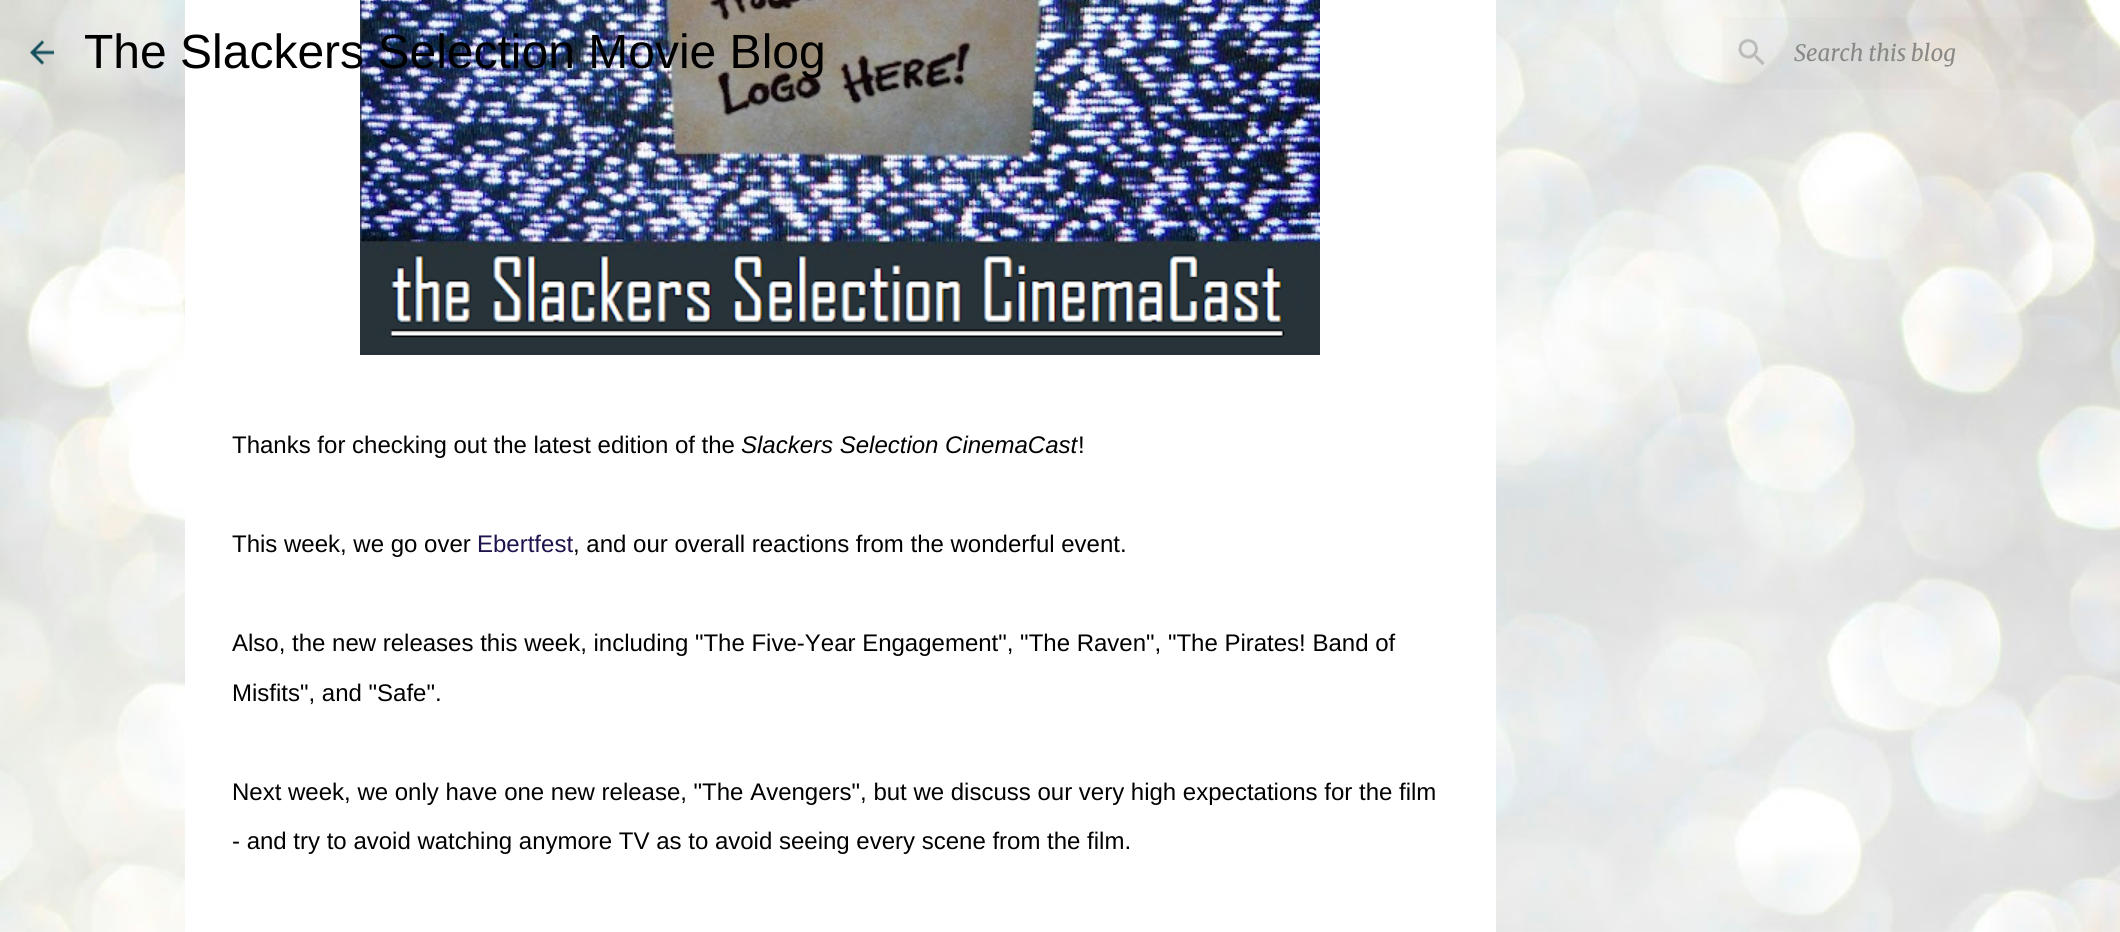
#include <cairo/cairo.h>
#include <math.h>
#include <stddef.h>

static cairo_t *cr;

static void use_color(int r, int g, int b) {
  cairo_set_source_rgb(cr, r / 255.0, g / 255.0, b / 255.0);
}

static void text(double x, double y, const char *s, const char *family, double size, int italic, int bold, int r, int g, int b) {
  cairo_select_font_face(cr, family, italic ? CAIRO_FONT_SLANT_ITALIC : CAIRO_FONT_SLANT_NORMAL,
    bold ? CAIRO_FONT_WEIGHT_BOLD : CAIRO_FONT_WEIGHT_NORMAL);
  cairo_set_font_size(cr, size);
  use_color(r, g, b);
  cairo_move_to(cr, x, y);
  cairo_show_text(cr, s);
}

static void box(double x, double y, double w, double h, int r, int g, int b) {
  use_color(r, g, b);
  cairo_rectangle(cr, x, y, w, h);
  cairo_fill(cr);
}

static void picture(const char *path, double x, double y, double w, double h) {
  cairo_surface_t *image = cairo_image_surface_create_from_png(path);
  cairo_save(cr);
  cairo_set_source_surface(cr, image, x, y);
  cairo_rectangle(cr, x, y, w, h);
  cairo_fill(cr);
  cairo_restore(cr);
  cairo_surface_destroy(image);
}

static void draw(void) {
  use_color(255, 255, 255);
  cairo_paint(cr);
  picture("img_01.png", 0, 0, 2120, 932);
  picture("img_02.png", 30, 40, 24, 25);
  cairo_set_source_rgba(cr, 0.42, 0.42, 0.42, 0.03);
  cairo_rectangle(cr, 1722, 17, 375, 72);
  cairo_fill(cr);
  picture("img_03.png", 1738, 38, 27, 28);
  box(185, 0, 1311, 932, 255, 255, 255);
  picture("img_04.png", 360, 0, 960, 355);
  text(84, 68, "The Slackers Selection Movie Blog", "Liberation Sans", 48, 0, 0, 0, 0, 0);
  text(1794, 61, "Search this blog", "Merriweather Light", 22.5, 1, 0, 137, 136, 133);
  text(232, 453, "Thanks for checking out the latest edition of the", "Liberation Sans", 24, 0, 0, 0, 0, 0);
  text(741, 453, "Slackers Selection CinemaCast", "Liberation Sans", 24, 1, 0, 0, 0, 0);
  text(1078, 453, "!", "Liberation Sans", 24, 0, 0, 0, 0, 0);
  text(232, 552, "This week, we go over", "Liberation Sans", 24, 0, 0, 0, 0, 0);
  text(477, 552, "Ebertfest", "Liberation Sans", 24, 0, 0, 32, 18, 77);
  text(573, 552, ", and our overall reactions from the wonderful event.", "Liberation Sans", 24, 0, 0, 0, 0, 0);
  text(232, 651, "Also, the new releases this week, including \"The Five-Year Engagement\", \"The Raven\", \"The Pirates! Band of", "Liberation Sans", 24, 0, 0, 0, 0, 0);
  text(232, 701, "Misfits\", and \"Safe\".", "Liberation Sans", 24, 0, 0, 0, 0, 0);
  text(232, 800, "Next week, we only have one new release, \"The Avengers\", but we discuss our very high expectations for the film", "Liberation Sans", 24, 0, 0, 0, 0, 0);
  text(232, 849, "- and try to avoid watching anymore TV as to avoid seeing every scene from the film.", "Liberation Sans", 24, 0, 0, 0, 0, 0);
}

int main(void) {
  cairo_surface_t *surface = cairo_image_surface_create(CAIRO_FORMAT_RGB24, 2120, 932);
  cr = cairo_create(surface);
  cairo_font_options_t *options = cairo_font_options_create();
  cairo_font_options_set_hint_metrics(options, CAIRO_HINT_METRICS_OFF);
  cairo_font_options_set_hint_style(options, CAIRO_HINT_STYLE_NONE);
  cairo_set_font_options(cr, options);
  cairo_set_miter_limit(cr, 4);
  draw();
  cairo_surface_write_to_png(surface, "out.png");
  cairo_font_options_destroy(options);
  cairo_destroy(cr);
  cairo_surface_destroy(surface);
  return 0;
}
